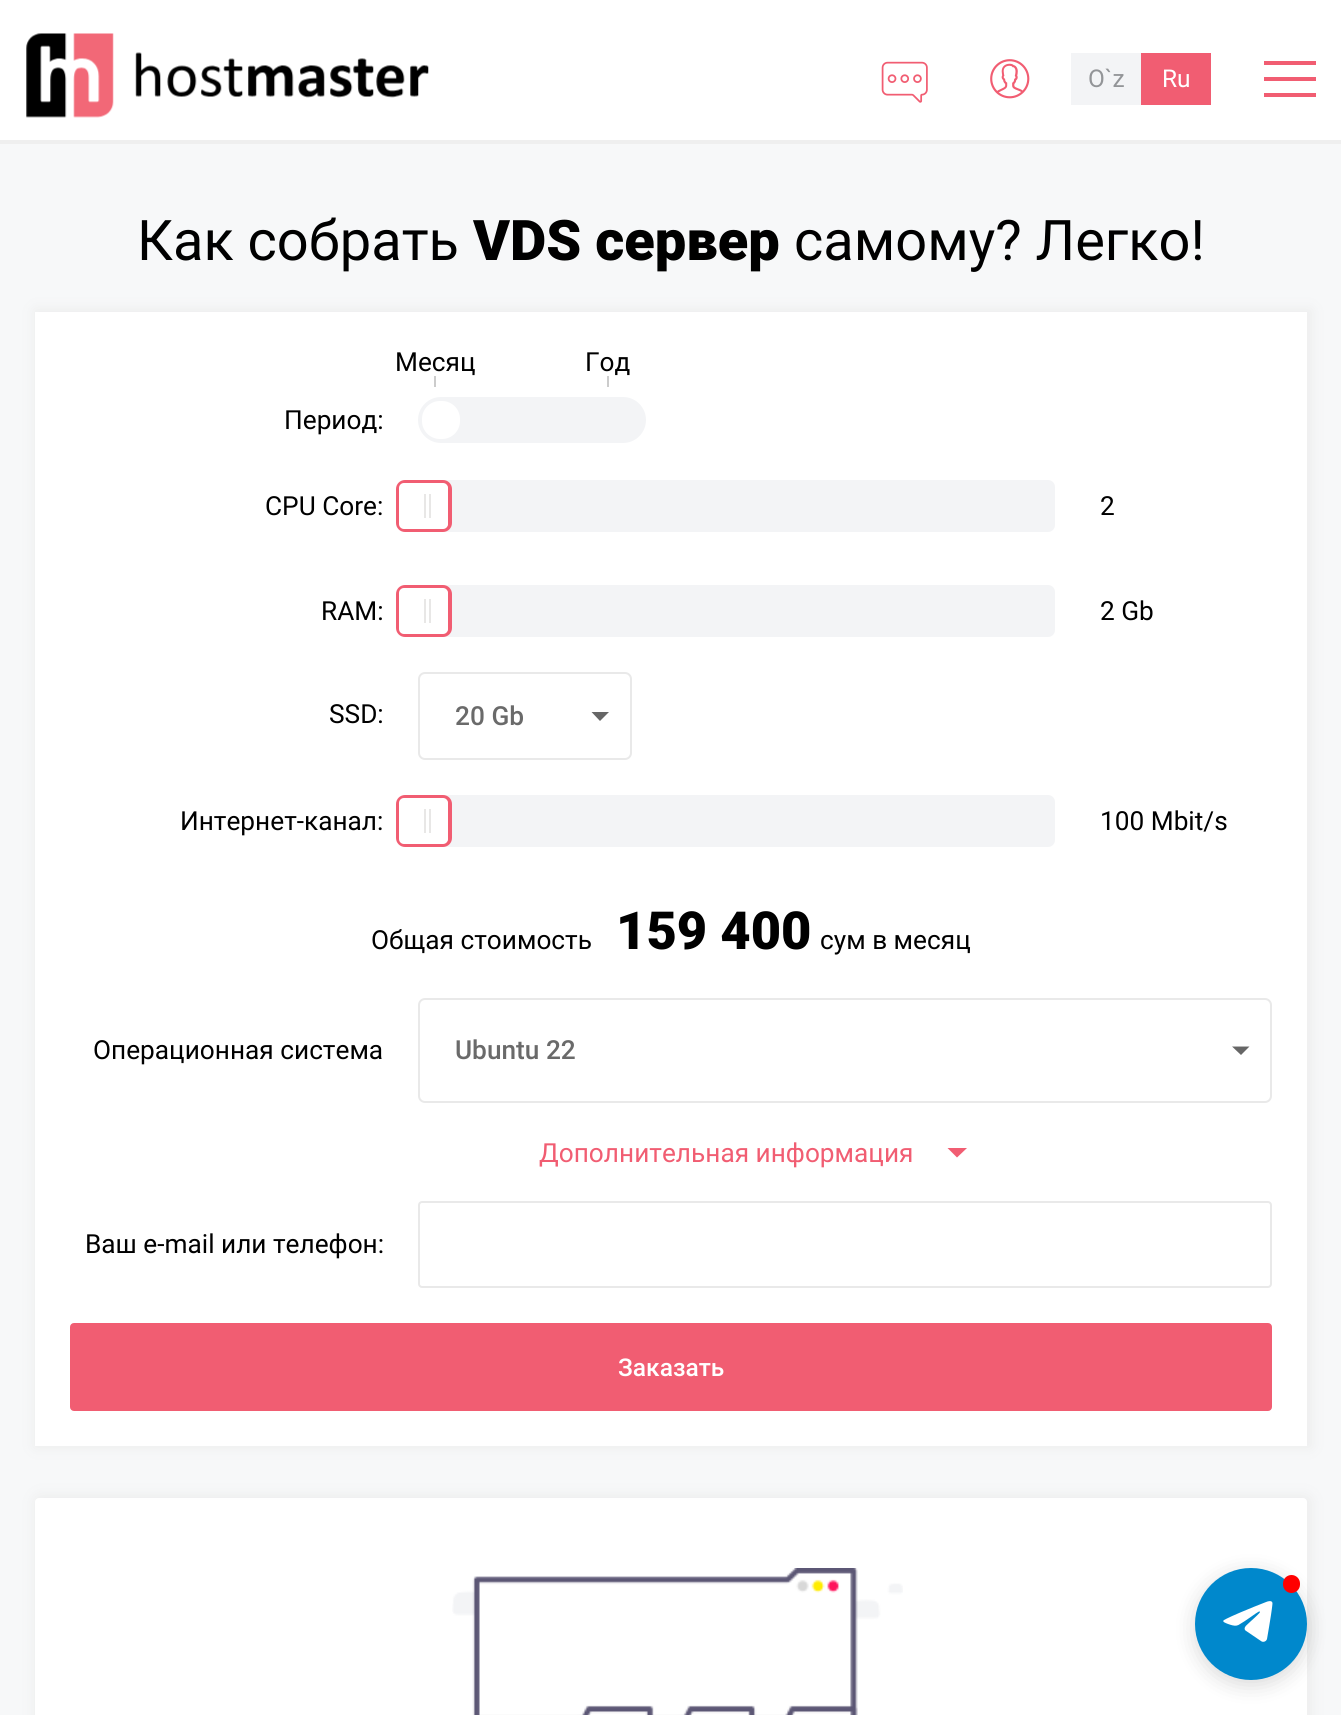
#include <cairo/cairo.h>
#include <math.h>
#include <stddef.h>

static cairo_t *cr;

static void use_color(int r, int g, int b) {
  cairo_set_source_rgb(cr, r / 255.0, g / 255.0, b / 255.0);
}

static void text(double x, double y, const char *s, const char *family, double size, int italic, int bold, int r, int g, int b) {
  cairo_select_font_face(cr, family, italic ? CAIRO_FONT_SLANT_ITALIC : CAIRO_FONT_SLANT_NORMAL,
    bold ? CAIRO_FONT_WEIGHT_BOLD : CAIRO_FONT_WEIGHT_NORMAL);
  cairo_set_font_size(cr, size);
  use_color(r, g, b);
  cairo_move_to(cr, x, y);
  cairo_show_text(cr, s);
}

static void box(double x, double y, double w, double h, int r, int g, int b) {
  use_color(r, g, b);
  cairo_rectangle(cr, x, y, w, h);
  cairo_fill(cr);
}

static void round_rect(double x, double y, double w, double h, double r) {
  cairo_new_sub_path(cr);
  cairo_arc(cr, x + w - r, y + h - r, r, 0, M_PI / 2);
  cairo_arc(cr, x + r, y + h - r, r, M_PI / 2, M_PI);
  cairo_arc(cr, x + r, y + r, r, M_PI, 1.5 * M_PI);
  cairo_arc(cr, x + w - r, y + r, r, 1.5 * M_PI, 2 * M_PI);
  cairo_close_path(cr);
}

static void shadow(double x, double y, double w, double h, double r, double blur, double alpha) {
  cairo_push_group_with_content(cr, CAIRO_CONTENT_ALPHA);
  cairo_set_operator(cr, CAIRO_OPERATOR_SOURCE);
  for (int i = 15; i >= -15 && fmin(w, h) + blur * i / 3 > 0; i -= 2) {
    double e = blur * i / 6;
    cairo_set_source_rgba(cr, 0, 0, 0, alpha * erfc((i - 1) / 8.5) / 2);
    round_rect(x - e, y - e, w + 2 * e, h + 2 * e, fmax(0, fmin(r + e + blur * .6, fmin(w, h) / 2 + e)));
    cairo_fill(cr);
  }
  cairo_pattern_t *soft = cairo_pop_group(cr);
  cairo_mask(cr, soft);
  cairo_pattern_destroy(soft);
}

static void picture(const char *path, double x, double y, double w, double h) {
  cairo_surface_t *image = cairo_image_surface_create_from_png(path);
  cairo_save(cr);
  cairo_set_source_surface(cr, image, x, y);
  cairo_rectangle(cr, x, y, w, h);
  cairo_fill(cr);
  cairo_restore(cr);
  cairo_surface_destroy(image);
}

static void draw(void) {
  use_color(247, 248, 249);
  cairo_paint(cr);
  box(0, 0, 1341, 140, 255, 255, 255);
  picture("img_01.png", 26, 33, 403, 85);
  picture("img_02.png", 881, 61, 47, 42);
  picture("img_03.png", 990, 59, 40, 40);
  box(1071, 53, 70, 52, 243, 244, 246);
  box(1141, 53, 70, 52, 241, 93, 114);
  box(1264, 61, 52, 4, 241, 93, 114);
  box(1264, 77, 52, 4, 241, 93, 114);
  box(1264, 93, 52, 4, 241, 93, 114);
  box(0, 140, 1341, 4, 239, 239, 239);
  use_color(236, 236, 236);
  shadow(35, 310, 1276, 1137, 0, 7, 1);
  box(35, 312, 1272, 1134, 255, 255, 255);
  box(434, 376, 2, 11, 204, 204, 204);
  box(607, 376, 2, 11, 204, 204, 204);
  use_color(243, 244, 246);
  round_rect(418, 397, 228, 46, 23);
  cairo_fill(cr);
  use_color(255, 255, 255);
  round_rect(422, 401, 38, 38, 18);
  cairo_fill(cr);
  use_color(243, 244, 246);
  round_rect(418, 480, 637, 52, 7);
  cairo_fill(cr);
  round_rect(398, 482, 52, 48, 7);
  use_color(241, 93, 114);
  cairo_set_line_width(cr, 4);
  cairo_stroke(cr);
  use_color(255, 255, 255);
  round_rect(399, 483, 49, 46, 5);
  cairo_fill(cr);
  box(424, 494, 2, 24, 232, 231, 230);
  box(429, 494, 2, 24, 232, 231, 230);
  use_color(243, 244, 246);
  round_rect(418, 585, 637, 52, 7);
  cairo_fill(cr);
  round_rect(398, 587, 52, 48, 7);
  use_color(241, 93, 114);
  cairo_stroke(cr);
  use_color(255, 255, 255);
  round_rect(399, 588, 49, 46, 5);
  cairo_fill(cr);
  box(424, 599, 2, 24, 232, 231, 230);
  box(429, 599, 2, 24, 232, 231, 230);
  round_rect(419, 673, 212, 86, 6);
  use_color(233, 233, 233);
  cairo_set_line_width(cr, 2);
  cairo_stroke(cr);
  use_color(102, 102, 102);
  cairo_new_path(cr);
  cairo_move_to(cr, 591.5, 712);
  cairo_line_to(cr, 609, 712);
  cairo_line_to(cr, 600, 721);
  cairo_close_path(cr);
  cairo_fill(cr);
  use_color(243, 244, 246);
  round_rect(418, 795, 637, 52, 7);
  cairo_fill(cr);
  round_rect(398, 797, 52, 48, 7);
  use_color(241, 93, 114);
  cairo_set_line_width(cr, 4);
  cairo_stroke(cr);
  use_color(255, 255, 255);
  round_rect(399, 798, 49, 46, 5);
  cairo_fill(cr);
  box(424, 809, 2, 24, 232, 231, 230);
  box(429, 809, 2, 24, 232, 231, 230);
  round_rect(419, 999, 852, 103, 6);
  use_color(233, 233, 233);
  cairo_set_line_width(cr, 2);
  cairo_stroke(cr);
  use_color(102, 102, 102);
  cairo_new_path(cr);
  cairo_move_to(cr, 1232, 1046.5);
  cairo_line_to(cr, 1249.5, 1046.5);
  cairo_line_to(cr, 1241, 1055);
  cairo_close_path(cr);
  cairo_fill(cr);
  use_color(241, 93, 114);
  cairo_set_fill_rule(cr, CAIRO_FILL_RULE_EVEN_ODD);
  cairo_new_path(cr);
  cairo_move_to(cr, 967, 1148);
  cairo_line_to(cr, 957, 1157.5);
  cairo_line_to(cr, 947.5, 1148);
  cairo_close_path(cr);
  cairo_fill(cr);
  round_rect(419, 1202, 852, 85, 3);
  use_color(233, 233, 233);
  cairo_stroke(cr);
  use_color(241, 93, 114);
  round_rect(72, 1325, 1198, 84, 2);
  cairo_fill_preserve(cr);
  cairo_set_line_width(cr, 4);
  cairo_stroke(cr);
  use_color(236, 236, 236);
  shadow(35, 1496, 1276, 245, 5, 7, 1);
  use_color(255, 255, 255);
  round_rect(35, 1498, 1272, 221, 4);
  cairo_fill(cr);
  picture("img_04.png", 452, 1568, 451, 147);
  use_color(0, 0, 0);
  shadow(1195, 1573, 112, 112, 56, 10.5, 0.15);
  use_color(0, 136, 204);
  cairo_arc(cr, 1251, 1624, 56, 0, 2 * M_PI);
  cairo_fill(cr);
  use_color(255, 0, 0);
  round_rect(1283, 1575, 17, 18, 8.5);
  cairo_fill(cr);
  picture("img_05.png", 1223, 1601, 50, 41);
  text(1088, 87, "O`z", "Roboto", 24.5, 0, 0, 147, 149, 152);
  text(1162, 87, "Ru", "Roboto", 24.5, 0, 0, 255, 255, 255);
  text(137, 260, "Как собрать", "Roboto", 56, 0, 0, 0, 0, 0);
  text(473, 260, "VDS сервер", "Roboto Black", 56, 0, 0, 0, 0, 0);
  text(794, 260, "самому? Легко!", "Roboto", 56, 0, 0, 0, 0, 0);
  text(395, 371, "Месяц", "Roboto", 26.25, 0, 0, 0, 0, 0);
  text(585, 371, "Год", "Roboto", 26.25, 0, 0, 0, 0, 0);
  text(284, 429, "Период:", "Roboto", 26.25, 0, 0, 0, 0, 0);
  text(265, 515, "CPU Core:", "Roboto", 26.25, 0, 0, 0, 0, 0);
  text(1100, 515, "2", "Roboto", 26.25, 0, 0, 0, 0, 0);
  text(321, 620, "RAM:", "Roboto", 26.25, 0, 0, 0, 0, 0);
  text(1100, 620, "2 Gb", "Roboto", 26.25, 0, 0, 0, 0, 0);
  text(329, 723, "SSD:", "Roboto", 26.25, 0, 0, 0, 0, 0);
  text(455, 725, "20 Gb", "Roboto Medium", 26.25, 0, 0, 106, 106, 106);
  text(180, 830, "Интернет-канал:", "Roboto", 26.25, 0, 0, 0, 0, 0);
  text(1100, 830, "100 Mbit/s", "Roboto", 26.25, 0, 0, 0, 0, 0);
  text(371, 949, "Общая стоимость", "Roboto", 26.25, 0, 0, 0, 0, 0);
  text(616, 949, "159 400", "Roboto Black", 52.5, 0, 0, 0, 0, 0);
  text(820, 949, "сум в месяц", "Roboto", 26.25, 0, 0, 0, 0, 0);
  text(93, 1059, "Операционная система", "Roboto", 26.25, 0, 0, 0, 0, 0);
  text(455, 1059, "Ubuntu 22", "Roboto Medium", 26.25, 0, 0, 106, 106, 106);
  text(539, 1162, "Дополнительная информация", "Roboto", 26.25, 0, 0, 241, 93, 114);
  text(85, 1253, "Ваш e-mail или телефон:", "Roboto", 26.25, 0, 0, 0, 0, 0);
  text(618, 1376, "Заказать", "Roboto Medium", 24.5, 0, 0, 255, 255, 255);
}

int main(void) {
  cairo_surface_t *surface = cairo_image_surface_create(CAIRO_FORMAT_RGB24, 1341, 1715);
  cr = cairo_create(surface);
  cairo_font_options_t *options = cairo_font_options_create();
  cairo_font_options_set_hint_metrics(options, CAIRO_HINT_METRICS_OFF);
  cairo_font_options_set_hint_style(options, CAIRO_HINT_STYLE_NONE);
  cairo_set_font_options(cr, options);
  cairo_set_miter_limit(cr, 4);
  draw();
  cairo_surface_write_to_png(surface, "out.png");
  cairo_font_options_destroy(options);
  cairo_destroy(cr);
  cairo_surface_destroy(surface);
  return 0;
}
